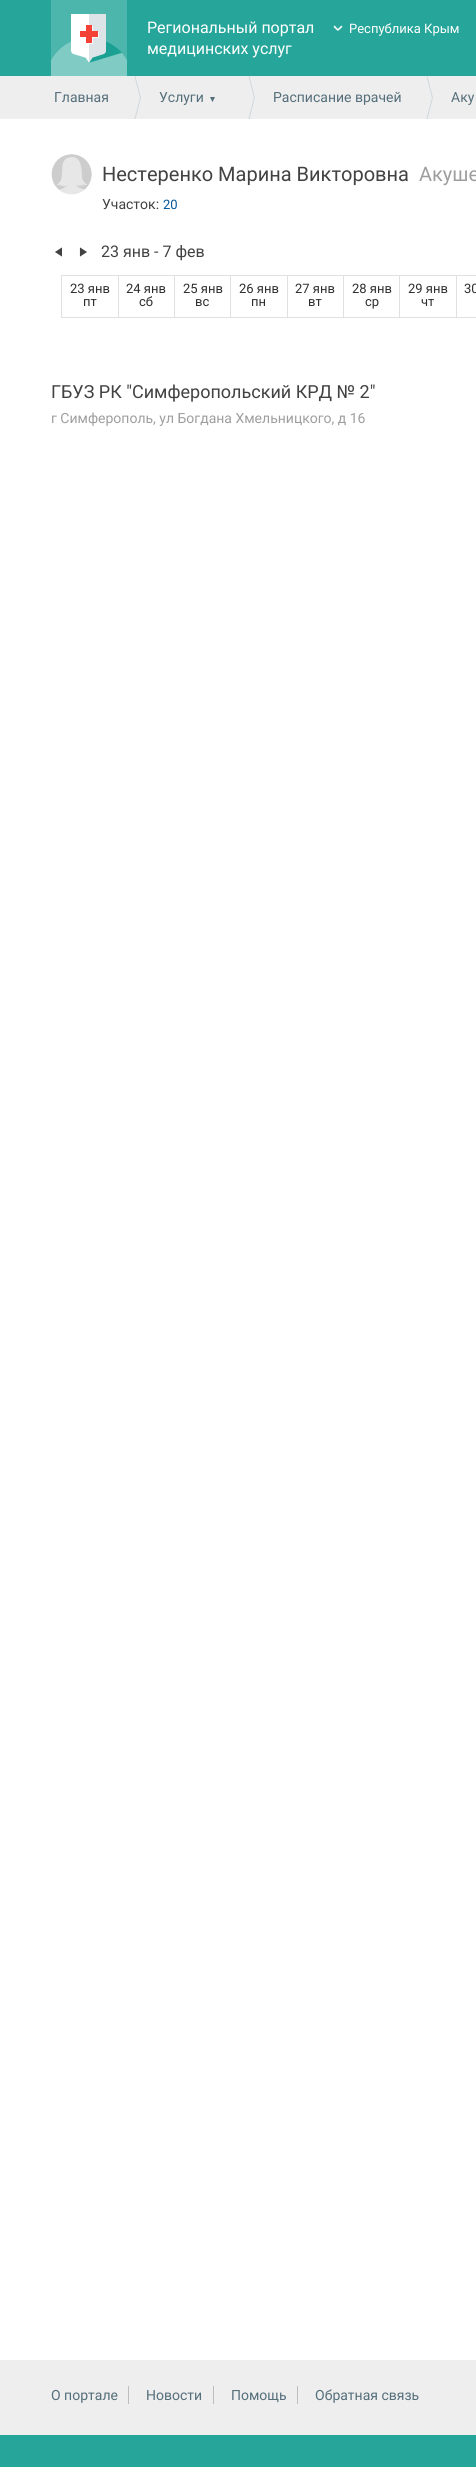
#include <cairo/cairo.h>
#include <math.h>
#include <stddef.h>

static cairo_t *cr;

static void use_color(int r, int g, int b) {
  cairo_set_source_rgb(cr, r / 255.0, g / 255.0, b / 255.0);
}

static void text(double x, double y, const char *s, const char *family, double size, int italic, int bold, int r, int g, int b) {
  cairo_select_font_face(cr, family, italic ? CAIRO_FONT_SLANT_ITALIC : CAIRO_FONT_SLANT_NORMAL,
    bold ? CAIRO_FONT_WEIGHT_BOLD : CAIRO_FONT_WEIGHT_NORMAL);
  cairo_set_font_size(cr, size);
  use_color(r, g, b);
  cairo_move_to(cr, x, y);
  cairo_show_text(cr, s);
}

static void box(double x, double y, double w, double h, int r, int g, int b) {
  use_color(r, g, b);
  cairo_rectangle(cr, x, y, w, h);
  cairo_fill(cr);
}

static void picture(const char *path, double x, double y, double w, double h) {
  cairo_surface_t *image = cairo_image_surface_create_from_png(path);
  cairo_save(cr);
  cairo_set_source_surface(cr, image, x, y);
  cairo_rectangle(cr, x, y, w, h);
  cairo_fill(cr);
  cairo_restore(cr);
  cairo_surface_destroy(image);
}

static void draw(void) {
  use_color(255, 255, 255);
  cairo_paint(cr);
  box(0, 0, 476, 76, 38, 166, 154);
  picture("img_01.png", 51, 0, 76, 76);
  picture("img_02.png", 333, 25, 10, 6);
  box(0, 76, 476, 43, 238, 238, 238);
  picture("img_03.png", 134, 76, 7, 43);
  picture("img_04.png", 210, 97, 5, 5);
  picture("img_03.png", 248, 76, 7, 43);
  picture("img_03.png", 426, 76, 7, 43);
  picture("img_05.png", 51, 154, 41, 41);
  picture("img_06.png", 55, 247, 7, 10);
  picture("img_07.png", 79, 247, 8, 10);
  cairo_rectangle(cr, 61.5, 275.5, 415, 42);
  use_color(224, 224, 224);
  cairo_set_line_width(cr, 1);
  cairo_stroke(cr);
  box(118, 276, 1, 41, 224, 224, 224);
  box(174, 276, 1, 41, 224, 224, 224);
  box(230, 276, 1, 41, 224, 224, 224);
  box(287, 276, 1, 41, 224, 224, 224);
  box(343, 276, 1, 41, 224, 224, 224);
  box(399, 276, 1, 41, 224, 224, 224);
  box(456, 276, 1, 41, 224, 224, 224);
  box(0, 2360, 476, 75, 238, 238, 238);
  box(128, 2386, 1, 18, 189, 189, 189);
  box(213, 2386, 1, 18, 189, 189, 189);
  box(297, 2386, 1, 18, 189, 189, 189);
  box(0, 2435, 476, 32, 38, 166, 154);
  text(147, 33, "Региональный портал", "Roboto", 16, 0, 0, 255, 255, 255);
  text(147, 54, "медицинских услуг", "Roboto", 16, 0, 0, 255, 255, 255);
  text(349, 33, "Республика Крым", "Roboto", 13, 0, 0, 255, 255, 255);
  text(54, 102, "Главная", "Roboto", 14, 0, 0, 84, 110, 122);
  text(159, 102, "Услуги", "Roboto", 14, 0, 0, 84, 110, 122);
  text(273, 102, "Расписание врачей", "Roboto", 14, 0, 0, 84, 110, 122);
  text(451, 102, "Аку", "Roboto", 14, 0, 0, 84, 110, 122);
  text(102, 181, "Нестеренко Марина Викторовна", "Roboto", 20, 0, 0, 66, 66, 66);
  text(419, 181, "Акуше", "Roboto", 20, 0, 0, 158, 158, 158);
  text(102, 209, "Участок:", "Roboto", 14, 0, 0, 66, 66, 66);
  text(163, 209, "20", "Roboto", 13, 0, 0, 1, 87, 155);
  text(101, 257, "23 янв - 7 фев", "Roboto", 16, 0, 0, 66, 66, 66);
  text(70, 293, "23 янв", "Roboto", 13, 0, 0, 46, 46, 46);
  text(83, 306, "пт", "Roboto", 13, 0, 0, 46, 46, 46);
  text(126, 293, "24 янв", "Roboto", 13, 0, 0, 46, 46, 46);
  text(139, 306, "сб", "Roboto", 13, 0, 0, 46, 46, 46);
  text(183, 293, "25 янв", "Roboto", 13, 0, 0, 46, 46, 46);
  text(195, 306, "вс", "Roboto", 13, 0, 0, 46, 46, 46);
  text(239, 293, "26 янв", "Roboto", 13, 0, 0, 46, 46, 46);
  text(251, 306, "пн", "Roboto", 13, 0, 0, 46, 46, 46);
  text(295, 293, "27 янв", "Roboto", 13, 0, 0, 46, 46, 46);
  text(308, 306, "вт", "Roboto", 13, 0, 0, 46, 46, 46);
  text(352, 293, "28 янв", "Roboto", 13, 0, 0, 46, 46, 46);
  text(365, 306, "ср", "Roboto", 13, 0, 0, 46, 46, 46);
  text(408, 293, "29 янв", "Roboto", 13, 0, 0, 46, 46, 46);
  text(421, 306, "чт", "Roboto", 13, 0, 0, 46, 46, 46);
  text(464, 293, "30", "Roboto", 13, 0, 0, 46, 46, 46);
  text(51, 398, "ГБУЗ РК \"Симферопольский КРД № 2\"", "Roboto", 18, 0, 0, 66, 66, 66);
  text(51, 423, "г Симферополь, ул Богдана Хмельницкого, д 16", "Roboto", 14, 0, 0, 158, 158, 158);
  text(51, 2400, "О портале", "Roboto", 14, 0, 0, 84, 110, 122);
  text(146, 2400, "Новости", "Roboto", 14, 0, 0, 84, 110, 122);
  text(231, 2400, "Помощь", "Roboto", 14, 0, 0, 84, 110, 122);
  text(315, 2400, "Обратная связь", "Roboto", 14, 0, 0, 84, 110, 122);
}

int main(void) {
  cairo_surface_t *surface = cairo_image_surface_create(CAIRO_FORMAT_RGB24, 476, 2467);
  cr = cairo_create(surface);
  cairo_font_options_t *options = cairo_font_options_create();
  cairo_font_options_set_hint_metrics(options, CAIRO_HINT_METRICS_OFF);
  cairo_font_options_set_hint_style(options, CAIRO_HINT_STYLE_NONE);
  cairo_set_font_options(cr, options);
  cairo_set_miter_limit(cr, 4);
  draw();
  cairo_surface_write_to_png(surface, "out.png");
  cairo_font_options_destroy(options);
  cairo_destroy(cr);
  cairo_surface_destroy(surface);
  return 0;
}
